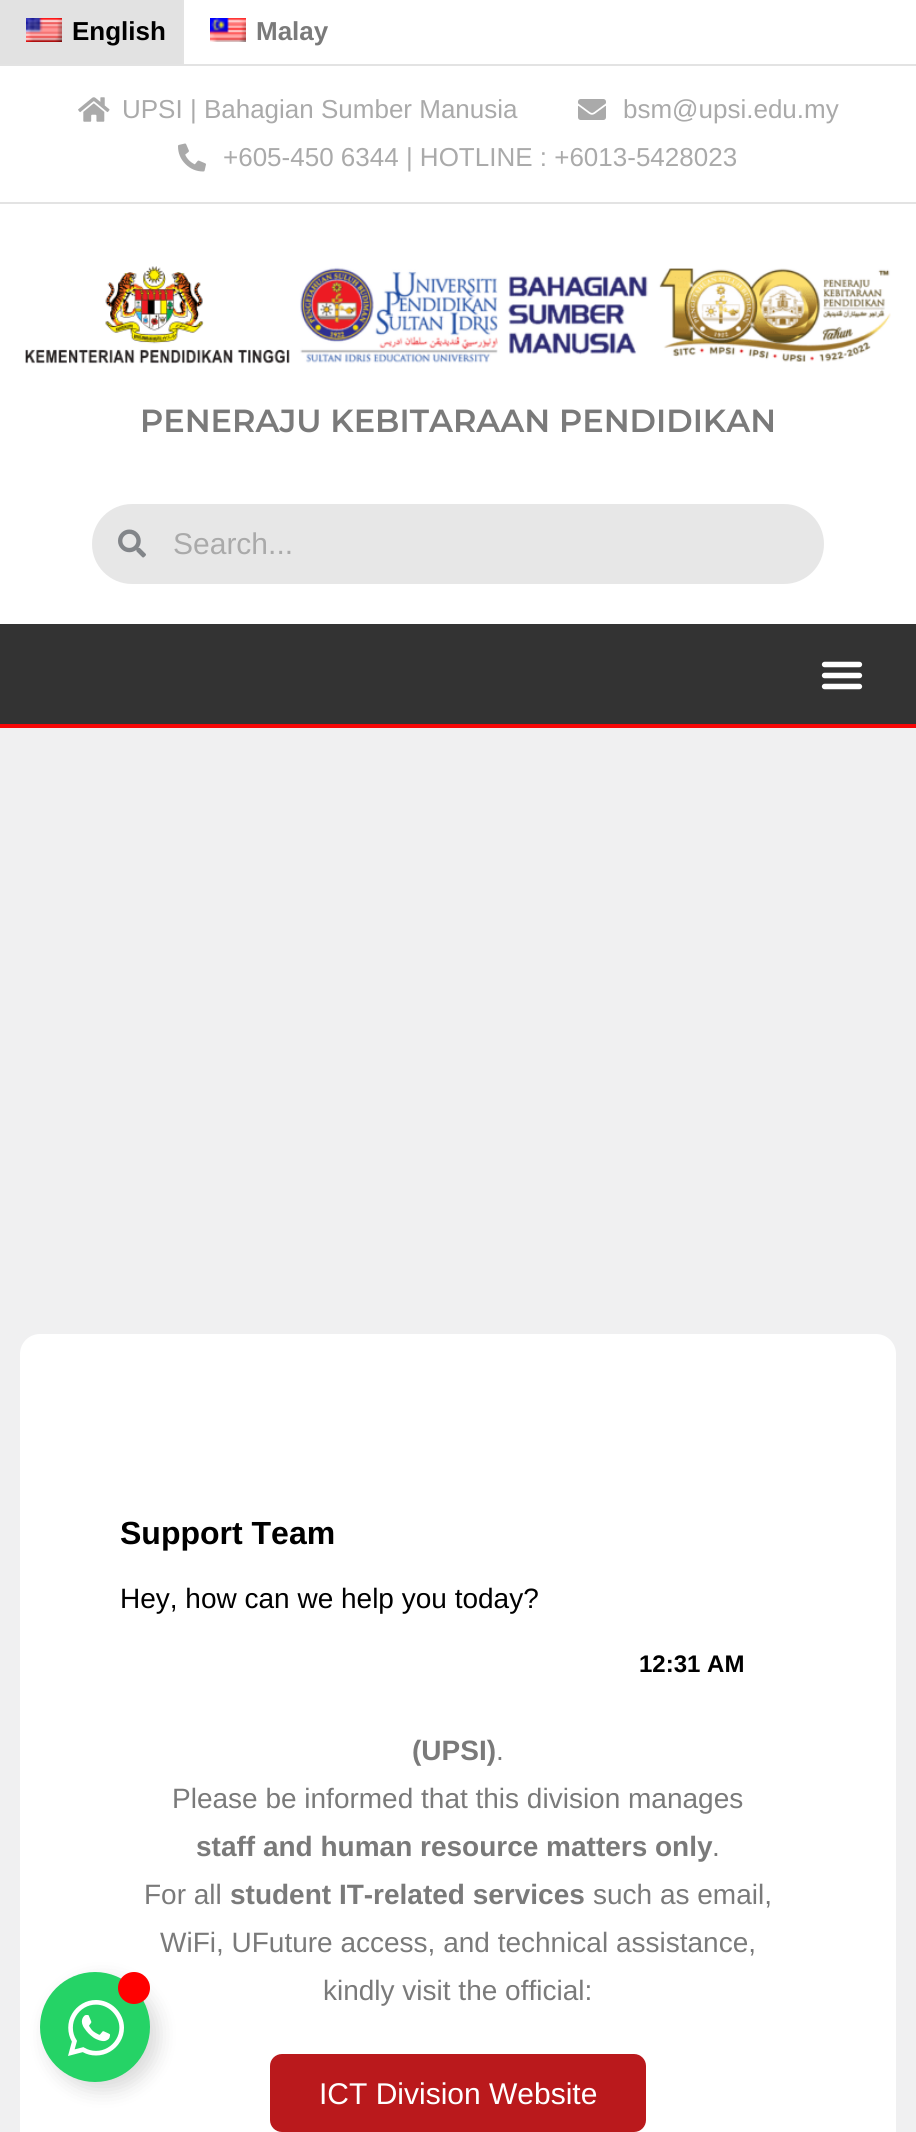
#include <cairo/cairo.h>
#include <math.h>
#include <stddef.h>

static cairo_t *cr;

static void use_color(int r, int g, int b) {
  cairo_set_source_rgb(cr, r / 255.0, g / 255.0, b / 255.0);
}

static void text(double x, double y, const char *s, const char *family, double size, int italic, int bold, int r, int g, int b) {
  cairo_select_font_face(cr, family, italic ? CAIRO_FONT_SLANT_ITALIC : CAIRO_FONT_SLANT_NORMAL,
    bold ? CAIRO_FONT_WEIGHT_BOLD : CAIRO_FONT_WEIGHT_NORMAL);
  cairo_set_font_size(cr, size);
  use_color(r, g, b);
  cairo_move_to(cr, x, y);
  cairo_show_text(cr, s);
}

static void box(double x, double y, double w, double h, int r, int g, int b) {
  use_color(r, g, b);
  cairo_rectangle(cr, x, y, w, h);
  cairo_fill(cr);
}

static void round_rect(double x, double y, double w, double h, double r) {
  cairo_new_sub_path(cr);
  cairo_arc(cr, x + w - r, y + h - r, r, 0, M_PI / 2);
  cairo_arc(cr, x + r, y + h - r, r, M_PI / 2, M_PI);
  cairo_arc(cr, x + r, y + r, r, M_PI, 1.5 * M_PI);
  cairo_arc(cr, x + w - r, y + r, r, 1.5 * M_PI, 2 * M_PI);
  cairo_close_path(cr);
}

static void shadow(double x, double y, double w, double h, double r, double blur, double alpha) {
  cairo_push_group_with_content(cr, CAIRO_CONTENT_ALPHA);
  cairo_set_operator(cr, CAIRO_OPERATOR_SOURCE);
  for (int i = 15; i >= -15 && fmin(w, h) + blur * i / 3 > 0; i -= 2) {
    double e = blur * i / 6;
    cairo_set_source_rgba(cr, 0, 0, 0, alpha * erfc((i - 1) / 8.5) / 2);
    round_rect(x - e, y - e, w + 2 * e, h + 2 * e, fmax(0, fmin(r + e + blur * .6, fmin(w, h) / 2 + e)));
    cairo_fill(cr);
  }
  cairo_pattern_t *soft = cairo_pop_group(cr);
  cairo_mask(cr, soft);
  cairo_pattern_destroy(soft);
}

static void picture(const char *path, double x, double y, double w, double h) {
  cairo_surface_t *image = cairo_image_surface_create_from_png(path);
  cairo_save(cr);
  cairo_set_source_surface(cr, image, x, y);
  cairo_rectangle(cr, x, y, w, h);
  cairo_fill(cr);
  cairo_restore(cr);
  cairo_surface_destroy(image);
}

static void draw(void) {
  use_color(240, 240, 241);
  cairo_paint(cr);
  box(184, 0, 732, 64, 255, 255, 255);
  box(0, 0, 182, 64, 226, 226, 226);
  picture("img_01.png", 26, 18, 36, 24);
  box(182, 0, 2, 64, 227, 227, 227);
  picture("img_02.png", 210, 18, 36, 24);
  box(0, 66, 916, 136, 255, 255, 255);
  box(0, 64, 916, 2, 227, 227, 227);
  box(0, 202, 916, 2, 227, 227, 227);
  picture("img_03.png", 78, 97, 32, 25);
  picture("img_04.png", 578, 99, 28, 21);
  picture("img_05.png", 178, 143, 28, 29);
  box(0, 204, 916, 420, 255, 255, 255);
  picture("img_06.png", 25, 266, 866, 98);
  use_color(231, 231, 231);
  round_rect(92, 504, 732, 80, 40);
  cairo_fill(cr);
  picture("img_07.png", 118, 529, 28, 29);
  box(0, 624, 916, 100, 51, 51, 51);
  box(0, 724, 916, 4, 247, 7, 7);
  picture("img_08.png", 821, 661, 42, 29);
  use_color(255, 255, 255);
  round_rect(20, 1334, 876, 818, 20);
  cairo_fill(cr);
  use_color(0, 0, 0);
  shadow(48, 1980, 110, 110, 55, 10, 0.15);
  use_color(37, 211, 102);
  cairo_arc(cr, 95, 2027, 55, 0, 2 * M_PI);
  cairo_fill(cr);
  picture("img_09.png", 68, 2000, 56, 56);
  use_color(255, 0, 0);
  cairo_arc(cr, 134, 1988, 16, 0, 2 * M_PI);
  cairo_fill(cr);
  use_color(186, 25, 28);
  round_rect(270, 2054, 376, 78, 12);
  cairo_fill(cr);
  text(72, 40, "English", "Liberation Sans", 26, 0, 1, 0, 0, 0);
  text(256, 40, "Malay", "Liberation Sans", 26, 0, 1, 122, 122, 122);
  text(122, 118, "UPSI | Bahagian Sumber Manusia", "Liberation Sans", 26, 0, 0, 170, 170, 170);
  text(623, 118, "bsm@upsi.edu.my", "Liberation Sans", 26, 0, 0, 170, 170, 170);
  text(223, 166, "+605-450 6344 | HOTLINE : +6013-5428023", "Liberation Sans", 26, 0, 0, 170, 170, 170);
  text(140, 432, "PENERAJU KEBITARAAN PENDIDIKAN", "Montserrat SemiBold", 32, 0, 0, 122, 122, 122);
  text(173, 554, "Search...", "Liberation Sans", 30, 0, 0, 170, 170, 170);
  text(120, 1544, "Support Team", "Liberation Sans", 32, 0, 1, 0, 0, 0);
  text(120, 1608, "Hey, how can we help you today?", "Liberation Sans", 28, 0, 0, 0, 0, 0);
  text(639, 1672, "12:31 AM", "Liberation Sans", 24, 0, 1, 0, 0, 0);
  text(412, 1760, "(UPSI)", "Liberation Sans", 28, 0, 1, 122, 122, 122);
  text(496, 1760, ".", "Liberation Sans", 28, 0, 0, 122, 122, 122);
  text(172, 1808, "Please be informed that this division manages", "Liberation Sans", 28, 0, 0, 122, 122, 122);
  text(196, 1856, "staff and human resource matters only", "Liberation Sans", 28, 0, 1, 122, 122, 122);
  text(712, 1856, ".", "Liberation Sans", 28, 0, 0, 122, 122, 122);
  text(144, 1904, "For all", "Liberation Sans", 28, 0, 0, 122, 122, 122);
  text(230, 1904, "student IT-related services", "Liberation Sans", 28, 0, 1, 122, 122, 122);
  text(593, 1904, "such as email,", "Liberation Sans", 28, 0, 0, 122, 122, 122);
  text(160, 1952, "WiFi, UFuture access, and technical assistance,", "Liberation Sans", 28, 0, 0, 122, 122, 122);
  text(323, 2000, "kindly visit the official:", "Liberation Sans", 28, 0, 0, 122, 122, 122);
  text(319, 2104, "ICT Division Website", "Liberation Sans", 30, 0, 0, 255, 255, 255);
}

int main(void) {
  cairo_surface_t *surface = cairo_image_surface_create(CAIRO_FORMAT_RGB24, 916, 2132);
  cr = cairo_create(surface);
  cairo_font_options_t *options = cairo_font_options_create();
  cairo_font_options_set_hint_metrics(options, CAIRO_HINT_METRICS_OFF);
  cairo_font_options_set_hint_style(options, CAIRO_HINT_STYLE_NONE);
  cairo_set_font_options(cr, options);
  cairo_set_miter_limit(cr, 4);
  draw();
  cairo_surface_write_to_png(surface, "out.png");
  cairo_font_options_destroy(options);
  cairo_destroy(cr);
  cairo_surface_destroy(surface);
  return 0;
}
